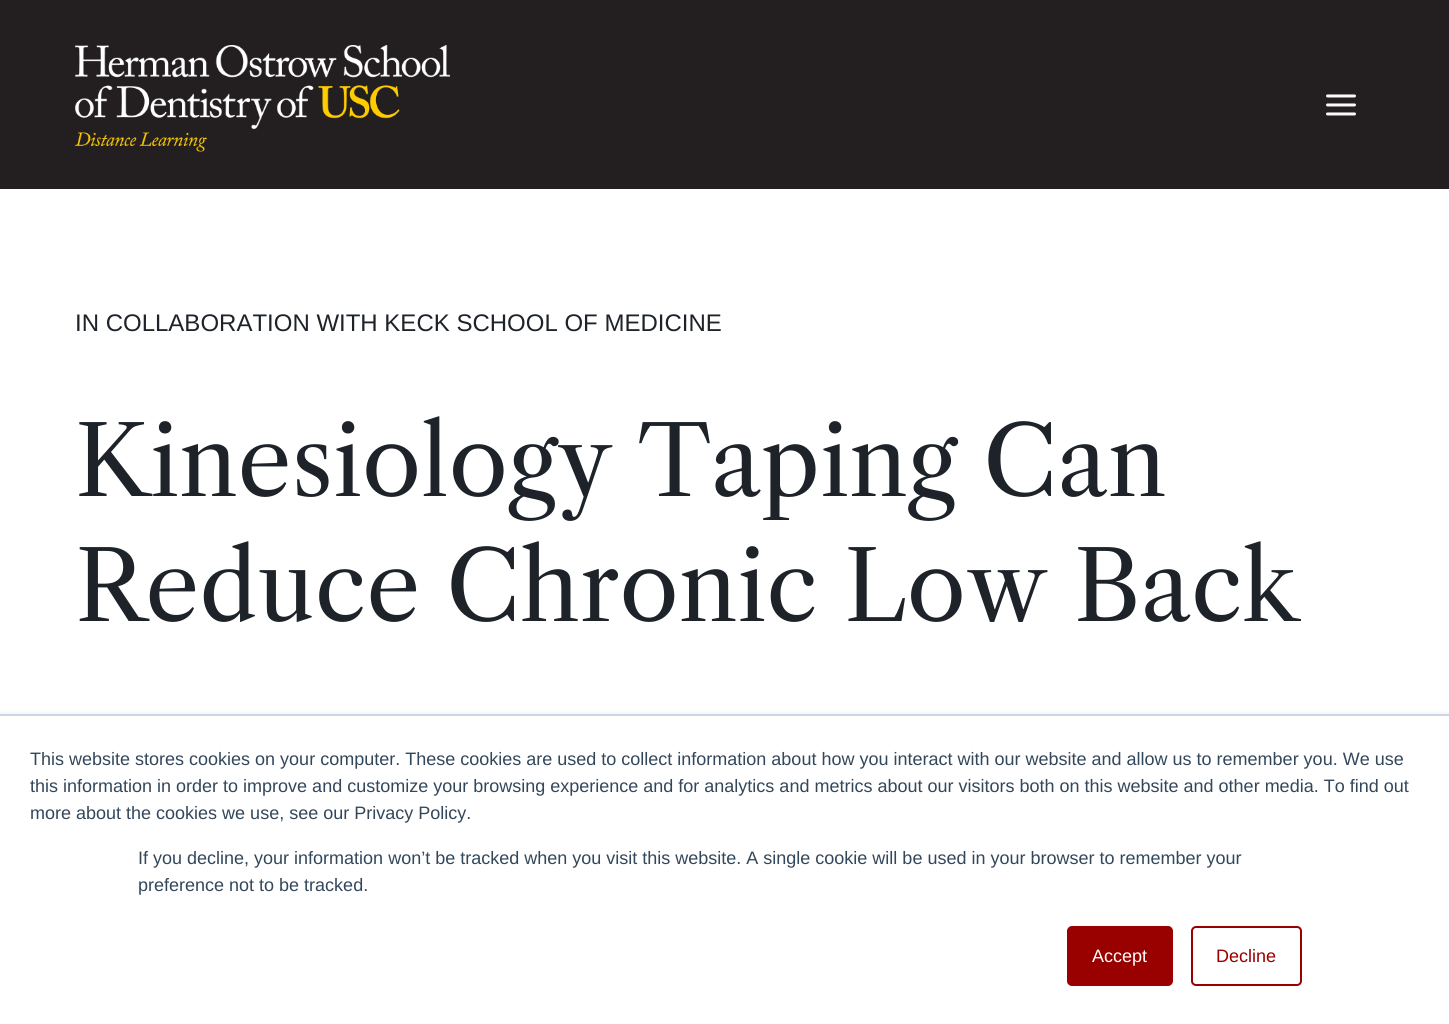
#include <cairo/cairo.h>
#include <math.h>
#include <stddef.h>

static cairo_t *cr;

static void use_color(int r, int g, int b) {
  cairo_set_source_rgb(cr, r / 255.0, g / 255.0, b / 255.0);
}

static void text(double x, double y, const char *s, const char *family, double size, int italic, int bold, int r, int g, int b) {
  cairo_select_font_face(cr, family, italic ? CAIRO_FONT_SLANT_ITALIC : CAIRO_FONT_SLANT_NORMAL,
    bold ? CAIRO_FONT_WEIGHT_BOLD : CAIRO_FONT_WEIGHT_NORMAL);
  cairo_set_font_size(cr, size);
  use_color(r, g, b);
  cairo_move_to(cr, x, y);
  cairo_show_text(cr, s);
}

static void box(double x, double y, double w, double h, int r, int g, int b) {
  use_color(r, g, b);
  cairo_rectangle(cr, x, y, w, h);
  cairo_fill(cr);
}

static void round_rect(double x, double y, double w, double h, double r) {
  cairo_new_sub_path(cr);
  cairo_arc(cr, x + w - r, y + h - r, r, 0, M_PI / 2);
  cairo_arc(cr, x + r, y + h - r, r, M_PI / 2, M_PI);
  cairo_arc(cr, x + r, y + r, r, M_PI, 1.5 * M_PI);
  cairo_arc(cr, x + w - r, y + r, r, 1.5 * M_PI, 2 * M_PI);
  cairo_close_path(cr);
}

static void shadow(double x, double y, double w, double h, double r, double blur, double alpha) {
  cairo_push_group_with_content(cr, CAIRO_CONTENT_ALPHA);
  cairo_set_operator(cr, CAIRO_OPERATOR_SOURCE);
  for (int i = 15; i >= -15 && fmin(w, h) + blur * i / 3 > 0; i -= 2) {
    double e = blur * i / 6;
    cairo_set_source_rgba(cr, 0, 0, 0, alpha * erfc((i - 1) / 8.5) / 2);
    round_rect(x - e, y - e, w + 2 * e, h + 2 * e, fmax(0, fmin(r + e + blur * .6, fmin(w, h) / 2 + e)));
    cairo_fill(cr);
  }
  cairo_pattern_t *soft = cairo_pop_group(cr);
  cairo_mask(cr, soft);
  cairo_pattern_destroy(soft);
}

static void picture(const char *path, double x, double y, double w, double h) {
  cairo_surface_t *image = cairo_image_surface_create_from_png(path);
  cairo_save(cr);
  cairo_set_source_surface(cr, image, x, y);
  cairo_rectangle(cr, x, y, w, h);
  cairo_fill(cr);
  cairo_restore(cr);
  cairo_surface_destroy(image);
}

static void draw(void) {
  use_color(255, 255, 255);
  cairo_paint(cr);
  box(0, 0, 1449, 189, 35, 31, 32);
  picture("img_01.png", 75, 45, 375, 107);
  picture("img_02.png", 1326, 94, 30, 22);
  use_color(234, 240, 246);
  shadow(0, 713, 1449, 310, 0, 2, 1);
  box(0, 716, 1449, 308, 255, 255, 255);
  box(0, 714, 1449, 2, 203, 214, 226);
  use_color(153, 0, 0);
  round_rect(1068, 927, 104, 58, 4);
  cairo_fill_preserve(cr);
  cairo_stroke(cr);
  round_rect(1192, 927, 109, 58, 4);
  cairo_stroke(cr);
  text(75, 331, "IN COLLABORATION WITH KECK SCHOOL OF MEDICINE", "Liberation Sans", 24, 0, 0, 29, 35, 41);
  text(75, 496, "Kinesiology Taping Can", "Libre Caslon Text", 96, 0, 0, 29, 35, 41);
  text(75, 621, "Reduce Chronic Low Back", "Libre Caslon Text", 96, 0, 0, 29, 35, 41);
  text(30, 765, "This website stores cookies on your computer. These cookies are used to collect information about how you interact with our website and allow us to remember you. We use", "Liberation Sans", 18, 0, 0, 51, 71, 91);
  text(30, 792, "this information in order to improve and customize your browsing experience and for analytics and metrics about our visitors both on this website and other media. To find out", "Liberation Sans", 18, 0, 0, 51, 71, 91);
  text(30, 819, "more about the cookies we use, see our Privacy Policy.", "Liberation Sans", 18, 0, 0, 51, 71, 91);
  text(138, 864, "If you decline, your information won’t be tracked when you visit this website. A single cookie will be used in your browser to remember your", "Liberation Sans", 18, 0, 0, 51, 71, 91);
  text(138, 891, "preference not to be tracked.", "Liberation Sans", 18, 0, 0, 51, 71, 91);
  text(1092, 962, "Accept", "Liberation Sans", 18, 0, 0, 255, 255, 255);
  text(1216, 962, "Decline", "Liberation Sans", 18, 0, 0, 153, 0, 0);
}

int main(void) {
  cairo_surface_t *surface = cairo_image_surface_create(CAIRO_FORMAT_RGB24, 1449, 1024);
  cr = cairo_create(surface);
  cairo_font_options_t *options = cairo_font_options_create();
  cairo_font_options_set_hint_metrics(options, CAIRO_HINT_METRICS_OFF);
  cairo_font_options_set_hint_style(options, CAIRO_HINT_STYLE_NONE);
  cairo_set_font_options(cr, options);
  cairo_set_miter_limit(cr, 4);
  draw();
  cairo_surface_write_to_png(surface, "out.png");
  cairo_font_options_destroy(options);
  cairo_destroy(cr);
  cairo_surface_destroy(surface);
  return 0;
}
